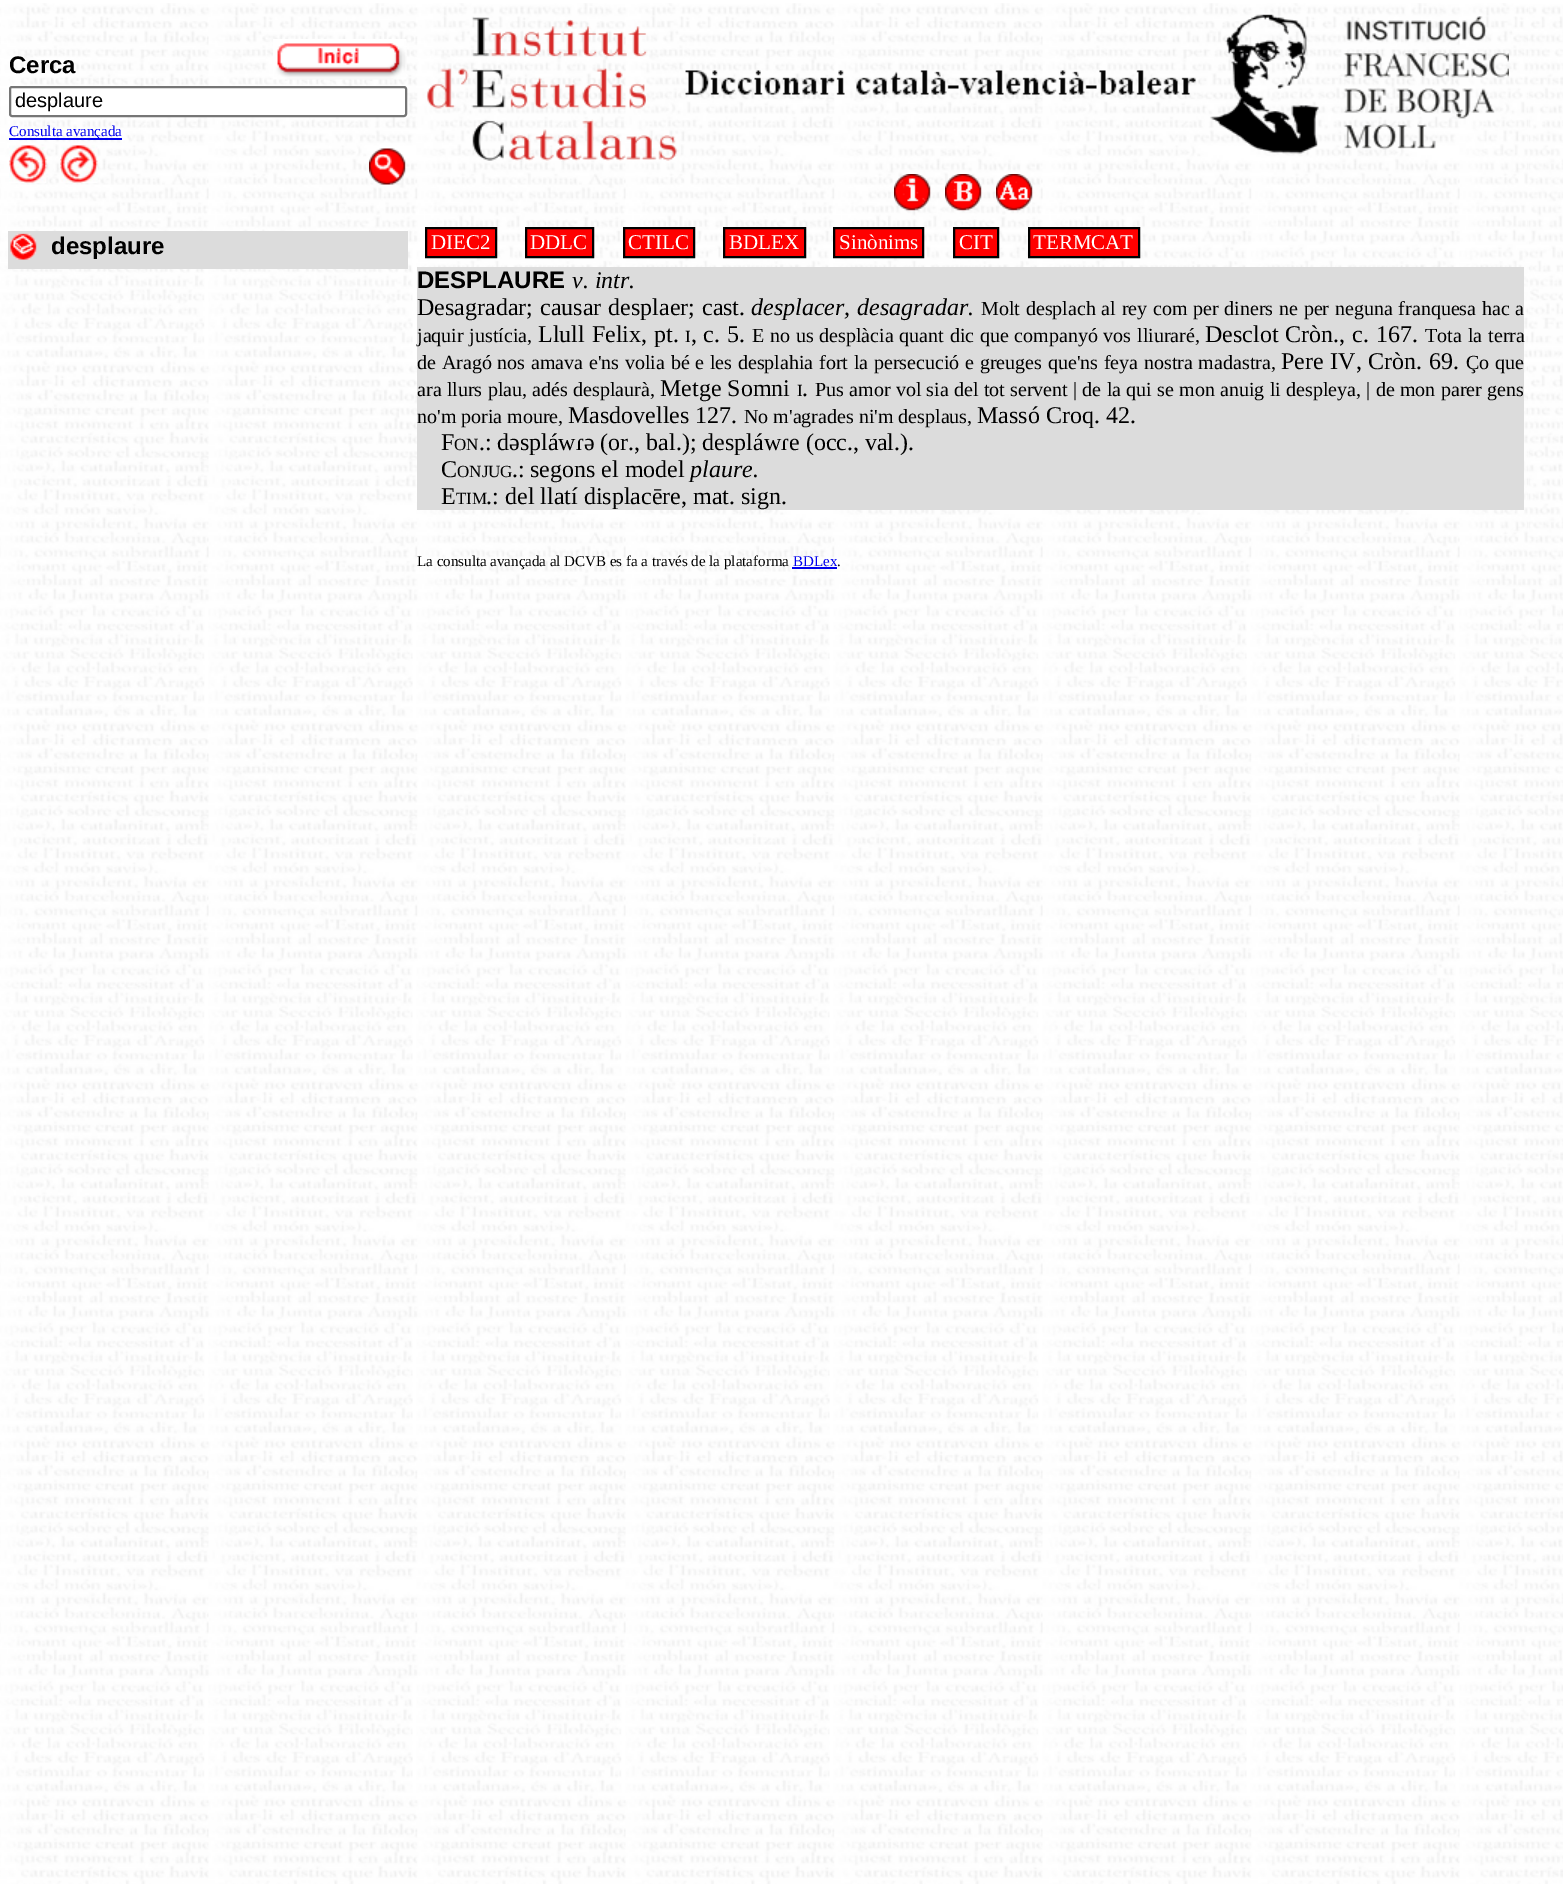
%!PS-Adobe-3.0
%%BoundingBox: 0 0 1563 1884
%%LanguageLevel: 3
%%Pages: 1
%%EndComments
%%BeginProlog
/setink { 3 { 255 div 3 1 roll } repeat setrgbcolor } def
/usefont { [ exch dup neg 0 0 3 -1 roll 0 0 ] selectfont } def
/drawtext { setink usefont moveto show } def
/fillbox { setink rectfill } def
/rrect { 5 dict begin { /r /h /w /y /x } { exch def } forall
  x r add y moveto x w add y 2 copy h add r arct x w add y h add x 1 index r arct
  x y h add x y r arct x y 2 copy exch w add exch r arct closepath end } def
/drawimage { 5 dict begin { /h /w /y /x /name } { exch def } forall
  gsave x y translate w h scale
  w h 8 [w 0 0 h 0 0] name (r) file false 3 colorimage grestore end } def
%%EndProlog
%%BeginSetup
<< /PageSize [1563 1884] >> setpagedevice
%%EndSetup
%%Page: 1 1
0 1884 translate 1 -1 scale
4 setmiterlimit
0 0 1563 1884 255 255 255 fillbox
(assets/img1.rgb) 0 3 1563 1881 drawimage
0 3 1529 570 255 255 255 fillbox
(assets/img2.rgb) 0 3 1529 570 drawimage
(Cerca) 9 73 /LiberationSans-Bold 24 0 0 0 drawtext
(assets/img3.rgb) 273 39 134 41 drawimage
255 255 255 setink
10 87 396 29 2 rrect gsave fill grestore
118 118 118 setink
2 setlinewidth
stroke
(desplaure) 15 107 /LiberationSans-Regular 20 0 0 0 drawtext
9 138 113 2 0 0 238 fillbox
(Consulta avançada) 9 136 /LiberationSerif-Regular 15 0 0 238 drawtext
(assets/img4.rgb) 9 145 38 38 drawimage
(assets/img5.rgb) 60 145 38 38 drawimage
(assets/img6.rgb) 369 148 37 37 drawimage
(assets/img7.rgb) 426 17 251 144 drawimage
(assets/img8.rgb) 685 70 511 25 drawimage
(assets/img9.rgb) 1210 14 299 140 drawimage
(assets/img10.rgb) 894 174 37 37 drawimage
(assets/img11.rgb) 945 174 37 37 drawimage
(assets/img12.rgb) 996 174 37 37 drawimage
8 231 400 38 220 220 220 fillbox
(assets/img13.rgb) 10 233 27 27 drawimage
(desplaure) 51 254 /LiberationSans-Bold 24 0 0 0 drawtext
255 0 0 setink
426 228 moveto 496 228 lineto 496 257 lineto 426 257 lineto closepath gsave fill grestore
0 0 0 setink
stroke
(DIEC2) 431 249 /LiberationSerif-Regular 21 255 255 255 drawtext
255 0 0 setink
526 228 moveto 593 228 lineto 593 257 lineto 526 257 lineto closepath gsave fill grestore
0 0 0 setink
stroke
(DDLC) 530 249 /LiberationSerif-Regular 21 255 255 255 drawtext
255 0 0 setink
624 228 moveto 694 228 lineto 694 257 lineto 624 257 lineto closepath gsave fill grestore
0 0 0 setink
stroke
(CTILC) 628 249 /LiberationSerif-Regular 21 255 255 255 drawtext
255 0 0 setink
724 228 moveto 805 228 lineto 805 257 lineto 724 257 lineto closepath gsave fill grestore
0 0 0 setink
stroke
(BDLEX) 729 249 /LiberationSerif-Regular 21 255 255 255 drawtext
255 0 0 setink
834 228 moveto 923 228 lineto 923 257 lineto 834 257 lineto closepath gsave fill grestore
0 0 0 setink
stroke
(Sinònims) 839 249 /LiberationSerif-Regular 21 255 255 255 drawtext
255 0 0 setink
954 228 moveto 998 228 lineto 998 257 lineto 954 257 lineto closepath gsave fill grestore
0 0 0 setink
stroke
(CIT) 959 249 /LiberationSerif-Regular 21 255 255 255 drawtext
255 0 0 setink
1029 228 moveto 1139 228 lineto 1139 257 lineto 1029 257 lineto closepath gsave fill grestore
0 0 0 setink
stroke
(TERMCAT) 1033 249 /LiberationSerif-Regular 21 255 255 255 drawtext
417 267 1107 243 220 220 220 fillbox
(DESPLAURE) 417 288 /LiberationSans-Bold 24 0 0 0 drawtext
(v. intr.) 572 288 /LiberationSerif-Italic 24 0 0 0 drawtext
/LiberationSerif-Regular 24 usefont
417 315 moveto 1 0 32 (Desagradar; causar desplaer; cast.) widthshow
/LiberationSerif-Italic 24 usefont
751 315 moveto 1 0 32 (desplacer, desagradar.) widthshow
/LiberationSerif-Regular 20 usefont
981 315 moveto 0.75 0 32 (Molt desplach al rey com per diners ne per neguna franquesa hac a) widthshow
417 342 moveto 0.75 0 32 (jaquir justícia,) widthshow
/LiberationSerif-Regular 24 usefont
538 342 moveto 1 0 32 (Llull Felix, pt.) widthshow
(I) 685 342 /LiberationSerif-Regular 17 0 0 0 drawtext
(,) 691 342 /LiberationSerif-Regular 24 0 0 0 drawtext
703 342 moveto 1 0 32 (c. 5.) widthshow
/LiberationSerif-Regular 20 usefont
752 342 moveto 0.75 0 32 (E no us desplàcia quant dic que companyó vos lliuraré,) widthshow
/LiberationSerif-Regular 24 usefont
1205 342 moveto 1 0 32 (Desclot Cròn., c. 167.) widthshow
/LiberationSerif-Regular 20 usefont
1425 342 moveto 1 0 32 (Tota la terra) widthshow
417 369 moveto 0.75 0 32 (de Aragó nos amava e'ns volia bé e les desplahia fort la persecució e greuges que'ns feya nostra madastra,) widthshow
/LiberationSerif-Regular 24 usefont
1281 369 moveto 0.75 0 32 (Pere IV, Cròn. 69.) widthshow
/LiberationSerif-Regular 20 usefont
1466 369 moveto 1 0 32 (Ço que) widthshow
417 396 moveto 0.3 0 32 (ara llurs plau, adés desplaurà,) widthshow
(Metge Somni) 660 396 /LiberationSerif-Regular 24 0 0 0 drawtext
(I) 797 396 /LiberationSerif-Regular 17 0 0 0 drawtext
(.) 802 396 /LiberationSerif-Regular 24 0 0 0 drawtext
/LiberationSerif-Regular 20 usefont
815 396 moveto 0.3 0 32 (Pus amor vol sia del tot servent | de la qui se mon anuig li despleya, | de mon parer gens) widthshow
(no'm poria moure,) 417 423 /LiberationSerif-Regular 20 0 0 0 drawtext
(Masdovelles 127.) 568 423 /LiberationSerif-Regular 24 0 0 0 drawtext
(No m'agrades ni'm desplaus,) 744 423 /LiberationSerif-Regular 20 0 0 0 drawtext
(Massó Croq. 42.) 977 423 /LiberationSerif-Regular 24 0 0 0 drawtext
(F) 441 450 /LiberationSerif-Regular 24 0 0 0 drawtext
(ON) 454 450 /LiberationSerif-Regular 17 0 0 0 drawtext
(.:) 479 450 /LiberationSerif-Regular 24 0 0 0 drawtext
(dəspláwɾə \(or., bal.\); despláwɾe \(occ., val.\).) 497 450 /LiberationSerif-Regular 24 0 0 0 drawtext
(C) 441 477 /LiberationSerif-Regular 24 0 0 0 drawtext
(ONJUG) 457 477 /LiberationSerif-Regular 17 0 0 0 drawtext
(.:) 512 477 /LiberationSerif-Regular 24 0 0 0 drawtext
(segons el model) 530 477 /LiberationSerif-Regular 24 0 0 0 drawtext
(plaure.) 690 477 /LiberationSerif-Italic 24 0 0 0 drawtext
(E) 441 504 /LiberationSerif-Regular 24 0 0 0 drawtext
(TIM) 456 504 /LiberationSerif-Regular 17 0 0 0 drawtext
(.:) 486 504 /LiberationSerif-Regular 24 0 0 0 drawtext
(del llatí displacēre, mat. sign.) 505 504 /LiberationSerif-Regular 24 0 0 0 drawtext
(La consulta avançada al DCVB es fa a través de la plataforma) 417 566 /LiberationSerif-Regular 15 0 0 0 drawtext
(BDLex) 793 566 /LiberationSerif-Regular 15 0 0 238 drawtext
792 567 45 2 0 0 238 fillbox
(.) 837 566 /LiberationSerif-Regular 15 0 0 0 drawtext
showpage
%%EOF
